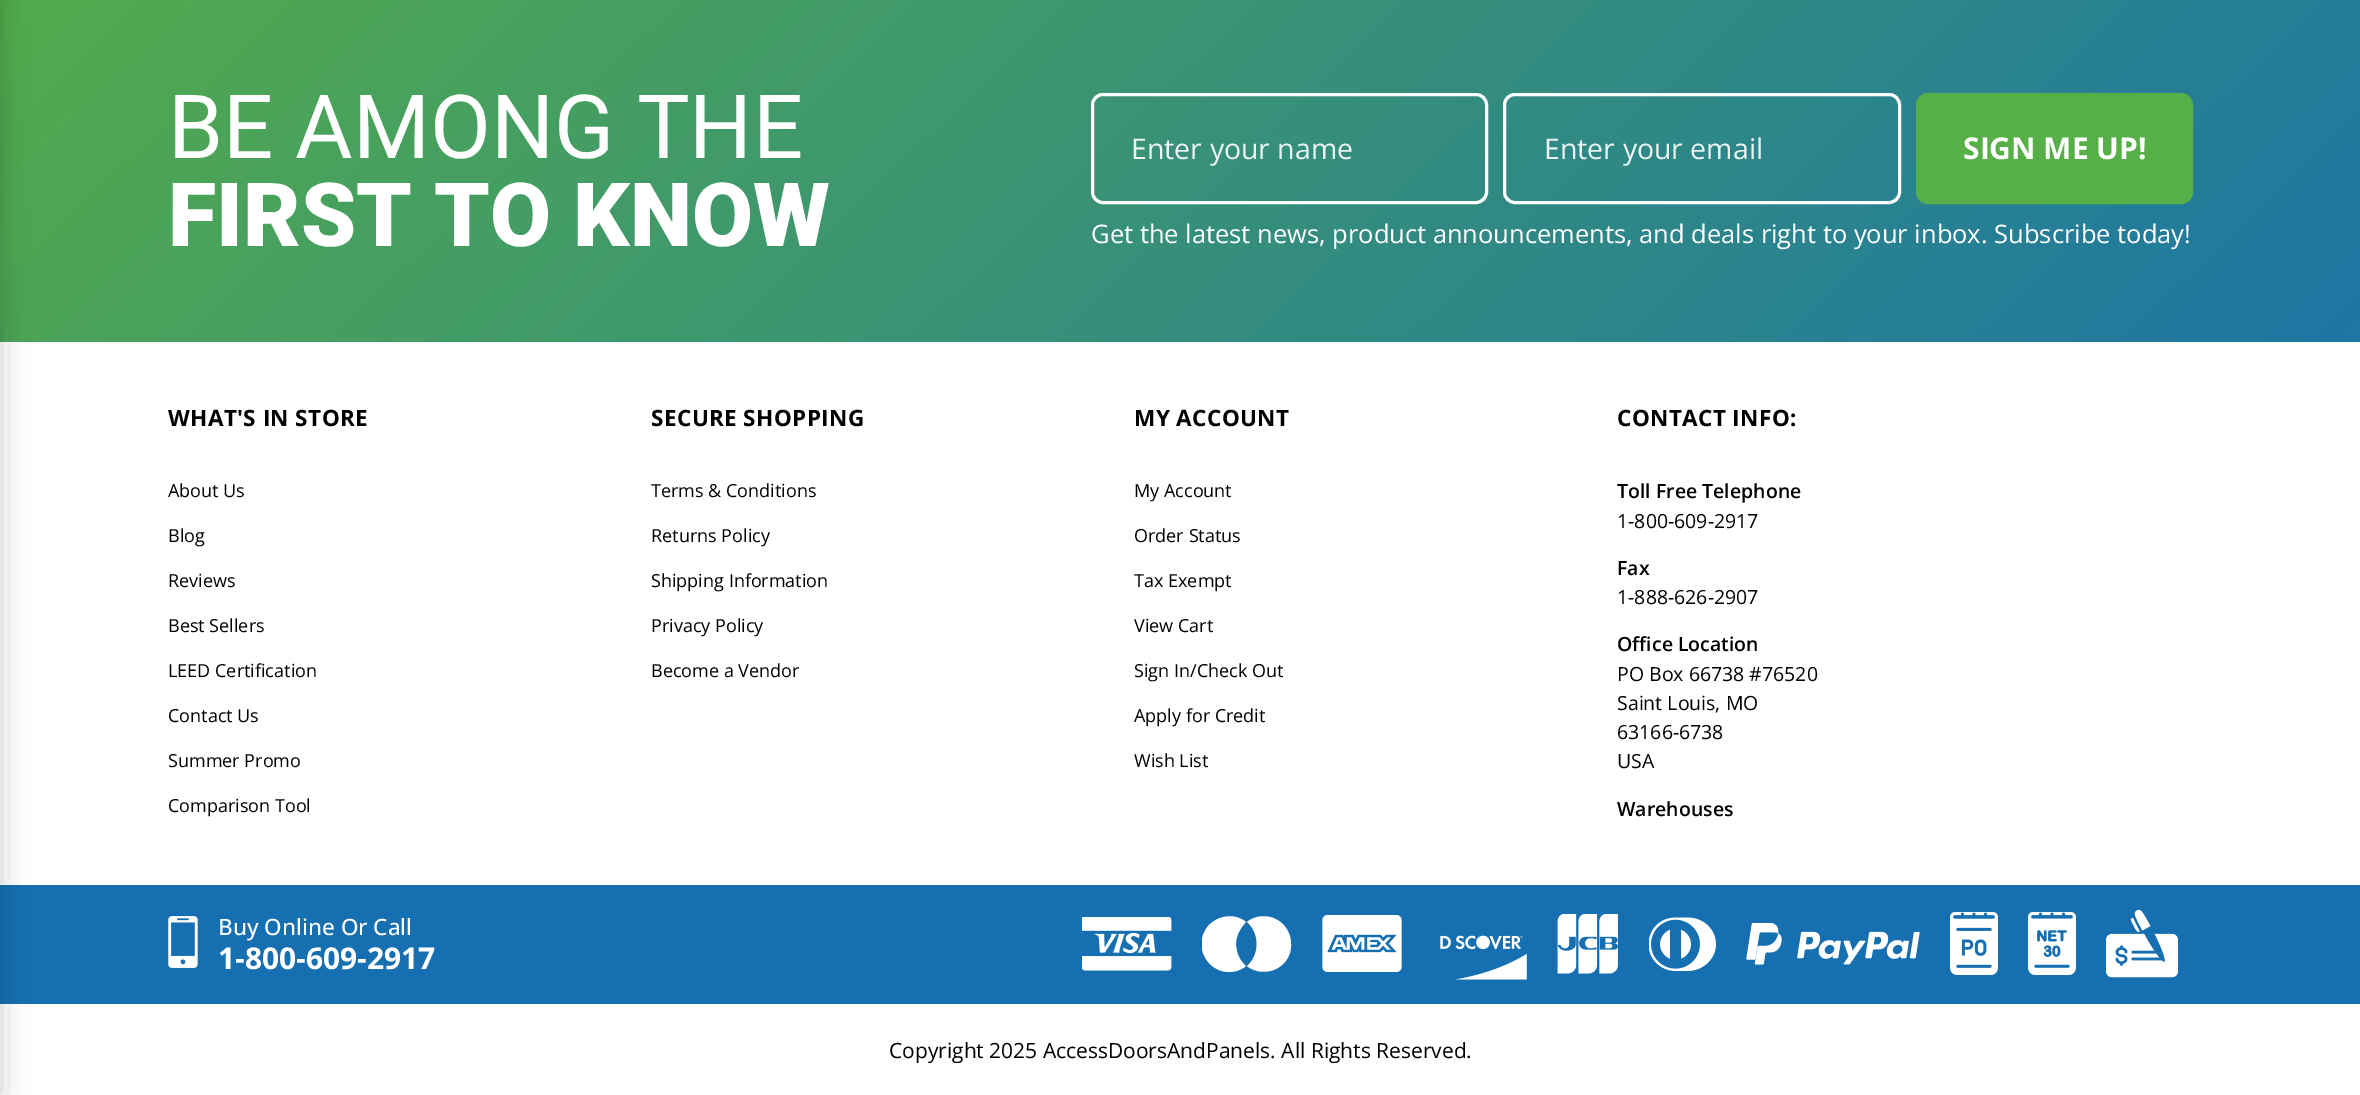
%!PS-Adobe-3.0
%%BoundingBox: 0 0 2360 1095
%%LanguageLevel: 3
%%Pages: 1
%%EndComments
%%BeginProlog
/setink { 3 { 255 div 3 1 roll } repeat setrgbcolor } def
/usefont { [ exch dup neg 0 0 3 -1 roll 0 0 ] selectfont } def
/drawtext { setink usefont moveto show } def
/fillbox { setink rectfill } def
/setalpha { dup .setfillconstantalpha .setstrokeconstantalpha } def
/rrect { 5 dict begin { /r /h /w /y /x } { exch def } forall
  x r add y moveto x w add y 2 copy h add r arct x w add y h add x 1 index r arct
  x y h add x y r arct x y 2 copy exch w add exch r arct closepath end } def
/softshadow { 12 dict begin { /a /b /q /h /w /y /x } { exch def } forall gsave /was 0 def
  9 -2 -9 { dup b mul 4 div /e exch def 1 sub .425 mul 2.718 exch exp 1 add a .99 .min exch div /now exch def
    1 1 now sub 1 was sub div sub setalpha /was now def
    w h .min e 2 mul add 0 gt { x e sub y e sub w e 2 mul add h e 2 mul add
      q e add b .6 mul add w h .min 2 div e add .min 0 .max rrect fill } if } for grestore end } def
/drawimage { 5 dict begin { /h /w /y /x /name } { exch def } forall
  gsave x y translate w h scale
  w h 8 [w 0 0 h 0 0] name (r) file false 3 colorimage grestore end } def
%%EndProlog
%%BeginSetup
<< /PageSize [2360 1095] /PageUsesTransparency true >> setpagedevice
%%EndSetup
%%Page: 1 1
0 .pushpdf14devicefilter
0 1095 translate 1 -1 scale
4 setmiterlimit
0 0 2360 1095 255 255 255 fillbox
gsave 0 0 moveto 2360 0 lineto 2360 342 lineto 0 342 lineto closepath clip newpath
<< /ShadingType 2 /ColorSpace /DeviceRGB /Coords [525 -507 1836 849] /Extend [true true] /Function << /FunctionType 2 /Domain [0 1] /C0 [0.325 0.675 0.298] /C1 [0.114 0.463 0.643] /N 1 >> >> shfill grestore
0 885 2360 119 22 111 176 fillbox
0 0 0 setink
-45 0 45 1095 0 15 0.2 softshadow
(BE AMONG THE) 168 158 /Roboto-Regular 88.5 255 255 255 drawtext
(FIRST TO KNOW) 168 246 /Roboto-Black 88.5 255 255 255 drawtext
3 setlinewidth
1092.5 94.5 394 108 10.5 rrect stroke
(Enter your name) 1131 159 /OpenSans-Regular 28.5 235 244 242 drawtext
255 255 255 setink
1504.5 94.5 395 108 10.5 rrect stroke
(Enter your email) 1544 159 /OpenSans-Regular 28.5 235 244 242 drawtext
86 175 71 setink
1917.5 94.5 274 108 10.5 rrect gsave fill grestore
stroke
(SIGN ME UP!) 1963 159 /OpenSans-Bold 30 255 255 255 drawtext
(Get the latest news, product announcements, and deals right to your inbox. Subscribe today!) 1091 243 /OpenSans-Regular 25.5 255 255 255 drawtext
/OpenSans-Bold 22.5 usefont
0 0 0 setink
168 426 moveto 0.4 0 (WHAT'S IN STORE) ashow
(About Us) 168 497 /OpenSans-Regular 18 0 0 0 drawtext
(Blog) 168 542 /OpenSans-Regular 18 0 0 0 drawtext
(Reviews) 168 587 /OpenSans-Regular 18 0 0 0 drawtext
(Best Sellers) 168 632 /OpenSans-Regular 18 0 0 0 drawtext
(LEED Certification) 168 677 /OpenSans-Regular 18 0 0 0 drawtext
(Contact Us) 168 722 /OpenSans-Regular 18 0 0 0 drawtext
(Summer Promo) 168 767 /OpenSans-Regular 18 0 0 0 drawtext
(Comparison Tool) 168 812 /OpenSans-Regular 18 0 0 0 drawtext
/OpenSans-Bold 22.5 usefont
651 426 moveto 0.4 0 (SECURE SHOPPING) ashow
(Terms & Conditions) 651 497 /OpenSans-Regular 18 0 0 0 drawtext
(Returns Policy) 651 542 /OpenSans-Regular 18 0 0 0 drawtext
(Shipping Information) 651 587 /OpenSans-Regular 18 0 0 0 drawtext
(Privacy Policy) 651 632 /OpenSans-Regular 18 0 0 0 drawtext
(Become a Vendor) 651 677 /OpenSans-Regular 18 0 0 0 drawtext
/OpenSans-Bold 22.5 usefont
1134 426 moveto 0.4 0 (MY ACCOUNT) ashow
(My Account) 1134 497 /OpenSans-Regular 18 0 0 0 drawtext
(Order Status) 1134 542 /OpenSans-Regular 18 0 0 0 drawtext
(Tax Exempt) 1134 587 /OpenSans-Regular 18 0 0 0 drawtext
(View Cart) 1134 632 /OpenSans-Regular 18 0 0 0 drawtext
(Sign In/Check Out) 1134 677 /OpenSans-Regular 18 0 0 0 drawtext
(Apply for Credit) 1134 722 /OpenSans-Regular 18 0 0 0 drawtext
(Wish List) 1134 767 /OpenSans-Regular 18 0 0 0 drawtext
/OpenSans-Bold 22.5 usefont
1617 426 moveto 0.4 0 (CONTACT INFO:) ashow
(Toll Free Telephone) 1617 498 /OpenSans-SemiBold 19.5 0 0 0 drawtext
(1-800-609-2917) 1617 528 /OpenSans-Regular 19.5 0 0 0 drawtext
(Fax) 1617 575 /OpenSans-SemiBold 19.5 0 0 0 drawtext
(1-888-626-2907) 1617 604 /OpenSans-Regular 19.5 0 0 0 drawtext
(Office Location) 1617 651 /OpenSans-SemiBold 19.5 0 0 0 drawtext
(PO Box 66738 #76520) 1617 681 /OpenSans-Regular 19.5 0 0 0 drawtext
(Saint Louis, MO) 1617 710 /OpenSans-Regular 19.5 0 0 0 drawtext
(63166-6738) 1617 739 /OpenSans-Regular 19.5 0 0 0 drawtext
(USA) 1617 768 /OpenSans-Regular 19.5 0 0 0 drawtext
(Warehouses) 1617 816 /OpenSans-SemiBold 19.5 0 0 0 drawtext
(assets/img1.rgb) 168 916 30 52 drawimage
(Buy Online Or Call) 218 935 /OpenSans-Medium 22.5 255 255 255 drawtext
(1-800-609-2917) 218 969 /OpenSans-Bold 30 255 255 255 drawtext
(assets/img2.rgb) 1082 917 90 54 drawimage
gsave
1202 909 90 71 rectclip
1236 944 moveto 1236 936 1240 928 1246 922 curveto 1235 913 1219 915 1209 925 curveto 1199 936 1199 952 1209 963 curveto 1219 974 1235 975 1246 966 curveto 1240 961 1236 953 1236 944 curveto fill
grestore
1291 944 moveto 1292 967 1265 980 1247 966 curveto 1260 955 1260 933 1247 922 curveto 1265 908 1291 921 1291 944 curveto fill
(assets/img3.rgb) 1322 915 80 57 drawimage
(assets/img4.rgb) 1440 935 87 45 drawimage
(assets/img5.rgb) 1557 914 61 60 drawimage
(assets/img6.rgb) 1649 917 67 54 drawimage
(assets/img7.rgb) 1746 923 174 42 drawimage
(assets/img8.rgb) 1950 912 48 63 drawimage
(assets/img9.rgb) 2028 912 48 63 drawimage
(assets/img10.rgb) 2106 909 72 69 drawimage
(Copyright 2025 AccessDoorsAndPanels. All Rights Reserved.) 889 1058 /OpenSans-Regular 21 0 0 0 drawtext
.poppdf14devicefilter showpage
%%EOF
